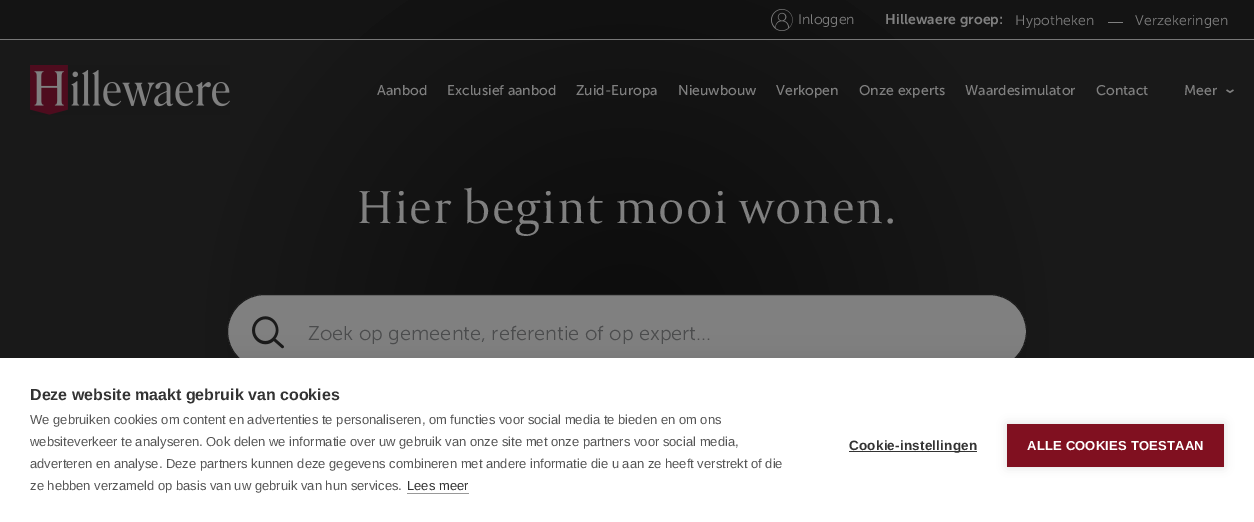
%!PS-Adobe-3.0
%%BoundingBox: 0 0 1254 522
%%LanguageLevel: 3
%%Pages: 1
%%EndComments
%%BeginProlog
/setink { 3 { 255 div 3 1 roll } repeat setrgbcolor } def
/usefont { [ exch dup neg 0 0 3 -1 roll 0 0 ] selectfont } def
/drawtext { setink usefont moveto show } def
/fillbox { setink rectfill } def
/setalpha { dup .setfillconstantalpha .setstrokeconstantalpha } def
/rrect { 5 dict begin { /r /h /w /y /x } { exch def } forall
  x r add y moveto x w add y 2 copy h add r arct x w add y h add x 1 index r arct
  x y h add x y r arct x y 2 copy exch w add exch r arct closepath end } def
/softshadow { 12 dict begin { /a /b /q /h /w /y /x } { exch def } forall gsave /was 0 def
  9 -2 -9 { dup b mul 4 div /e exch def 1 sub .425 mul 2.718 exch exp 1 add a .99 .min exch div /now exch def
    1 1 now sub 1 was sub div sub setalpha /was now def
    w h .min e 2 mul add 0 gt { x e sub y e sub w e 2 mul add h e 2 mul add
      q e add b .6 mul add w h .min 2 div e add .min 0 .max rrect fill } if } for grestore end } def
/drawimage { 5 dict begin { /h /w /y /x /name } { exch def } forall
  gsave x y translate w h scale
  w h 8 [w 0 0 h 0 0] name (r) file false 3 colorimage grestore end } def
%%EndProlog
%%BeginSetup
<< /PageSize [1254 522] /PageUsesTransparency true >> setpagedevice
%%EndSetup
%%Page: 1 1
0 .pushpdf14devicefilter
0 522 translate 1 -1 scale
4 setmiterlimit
0 0 1254 522 255 255 255 fillbox
0 39 1254 1 119 119 119 fillbox
gsave 0 0 moveto 1254 0 lineto 1254 39 lineto 0 39 lineto closepath clip newpath 627 335 translate 711 711 scale
<< /ShadingType 3 /ColorSpace /DeviceRGB /Coords [0 0 0 0 0 1] /Extend [true true] /Function << /FunctionType 3 /Domain [0 1] /Functions [<< /FunctionType 2 /Domain [0 1] /C0 [0.039 0.039 0.039] /C1 [0.078 0.078 0.078] /N 1 >> << /FunctionType 2 /Domain [0 1] /C0 [0.078 0.078 0.078] /C1 [0.078 0.078 0.078] /N 1 >>] /Bounds [0.6] /Encode [0 1 0 1] >> >> shfill grestore
(assets/img1.rgb) 771 9 22 22 drawimage
(Inloggen) 798 24 /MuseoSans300-Light 14 128 128 128 drawtext
/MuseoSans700-SemiBold 14 usefont
885 24 moveto 0.1 0 (Hillewaere groep:) ashow
/MuseoSans300-Light 14 usefont
1015 25 moveto 0.1 0 (Hypotheken) ashow
1108 22 15 1 128 128 128 fillbox
1135 25 moveto 0.1 0 (Verzekeringen) ashow
gsave 0 40 moveto 1254 40 lineto 1254 358 lineto 0 358 lineto closepath clip newpath 627 335 translate 711 711 scale
<< /ShadingType 3 /ColorSpace /DeviceRGB /Coords [0 0 0 0 0 1] /Extend [true true] /Function << /FunctionType 3 /Domain [0 1] /Functions [<< /FunctionType 2 /Domain [0 1] /C0 [0.047 0.047 0.047] /C1 [0.098 0.098 0.098] /N 1 >> << /FunctionType 2 /Domain [0 1] /C0 [0.098 0.098 0.098] /C1 [0.098 0.098 0.098] /N 1 >>] /Bounds [0.6] /Encode [0 1 0 1] >> >> shfill grestore
(assets/img2.rgb) 30 65 200 50 drawimage
(Aanbod) 377 95 /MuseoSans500-Regular 14 128 128 128 drawtext
(Exclusief aanbod) 447 95 /MuseoSans500-Regular 14 128 128 128 drawtext
(Zuid-Europa) 576 95 /MuseoSans500-Regular 14 128 128 128 drawtext
(Nieuwbouw) 678 95 /MuseoSans500-Regular 14 128 128 128 drawtext
(Verkopen) 776 95 /MuseoSans500-Regular 14 128 128 128 drawtext
(Onze experts) 859 95 /MuseoSans500-Regular 14 128 128 128 drawtext
(Waardesimulator) 965 95 /MuseoSans500-Regular 14 128 128 128 drawtext
(Contact) 1096 95 /MuseoSans500-Regular 14 128 128 128 drawtext
(Meer) 1184 95 /MuseoSans500-Regular 14 128 128 128 drawtext
(assets/img3.rgb) 1226 89 8 5 drawimage
/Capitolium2-Light 48.75 usefont
357 223 moveto 1 0 (Hier begint mooi wonen.) ashow
0 0 0 setink
226 293 802 77 38.5 1.5 0.1 softshadow
128 128 128 setink
227.5 294.5 799 74 37 rrect gsave fill grestore
26 26 26 setink
stroke
(assets/img4.rgb) 252 316 32 33 drawimage
(Zoek op gemeente, referentie of op expert...) 308 340 /MuseoSans300-Light 20 75 76 77 drawtext
0 0 0 setink
0 358 1254 164 0 10 0.1 softshadow
0 358 1254 164 255 255 255 fillbox
(Deze website maakt gebruik van cookies) 30 400 /LiberationSans-Bold 16 51 51 51 drawtext
(We gebruiken cookies om content en advertenties te personaliseren, om functies voor social media te bieden en om ons) 30 424 /LiberationSans-Regular 13 85 85 85 drawtext
(websiteverkeer te analyseren. Ook delen we informatie over uw gebruik van onze site met onze partners voor social media,) 30 446 /LiberationSans-Regular 13 85 85 85 drawtext
(adverteren en analyse. Deze partners kunnen deze gegevens combineren met andere informatie die u aan ze heeft verstrekt of die) 30 468 /LiberationSans-Regular 13 85 85 85 drawtext
(ze hebben verzameld op basis van uw gebruik van hun services.) 30 490 /LiberationSans-Regular 13 85 85 85 drawtext
(Lees meer) 407 490 /LiberationSans-Regular 13 51 51 51 drawtext
407 493 62 1 153 153 153 fillbox
849 451 128 1 51 51 51 fillbox
/LiberationSans-Bold 13.5 usefont
849 450 moveto 0.2 0 (Cookie-instellingen) ashow
0 0 0 setink
1007 424 217 43 0 5 0.12 softshadow
1007 424 217 43 128 16 32 fillbox
/LiberationSans-Bold 13 usefont
255 255 255 setink
1027 450 moveto 0.2 0 (ALLE COOKIES TOESTAAN) ashow
.poppdf14devicefilter showpage
%%EOF
